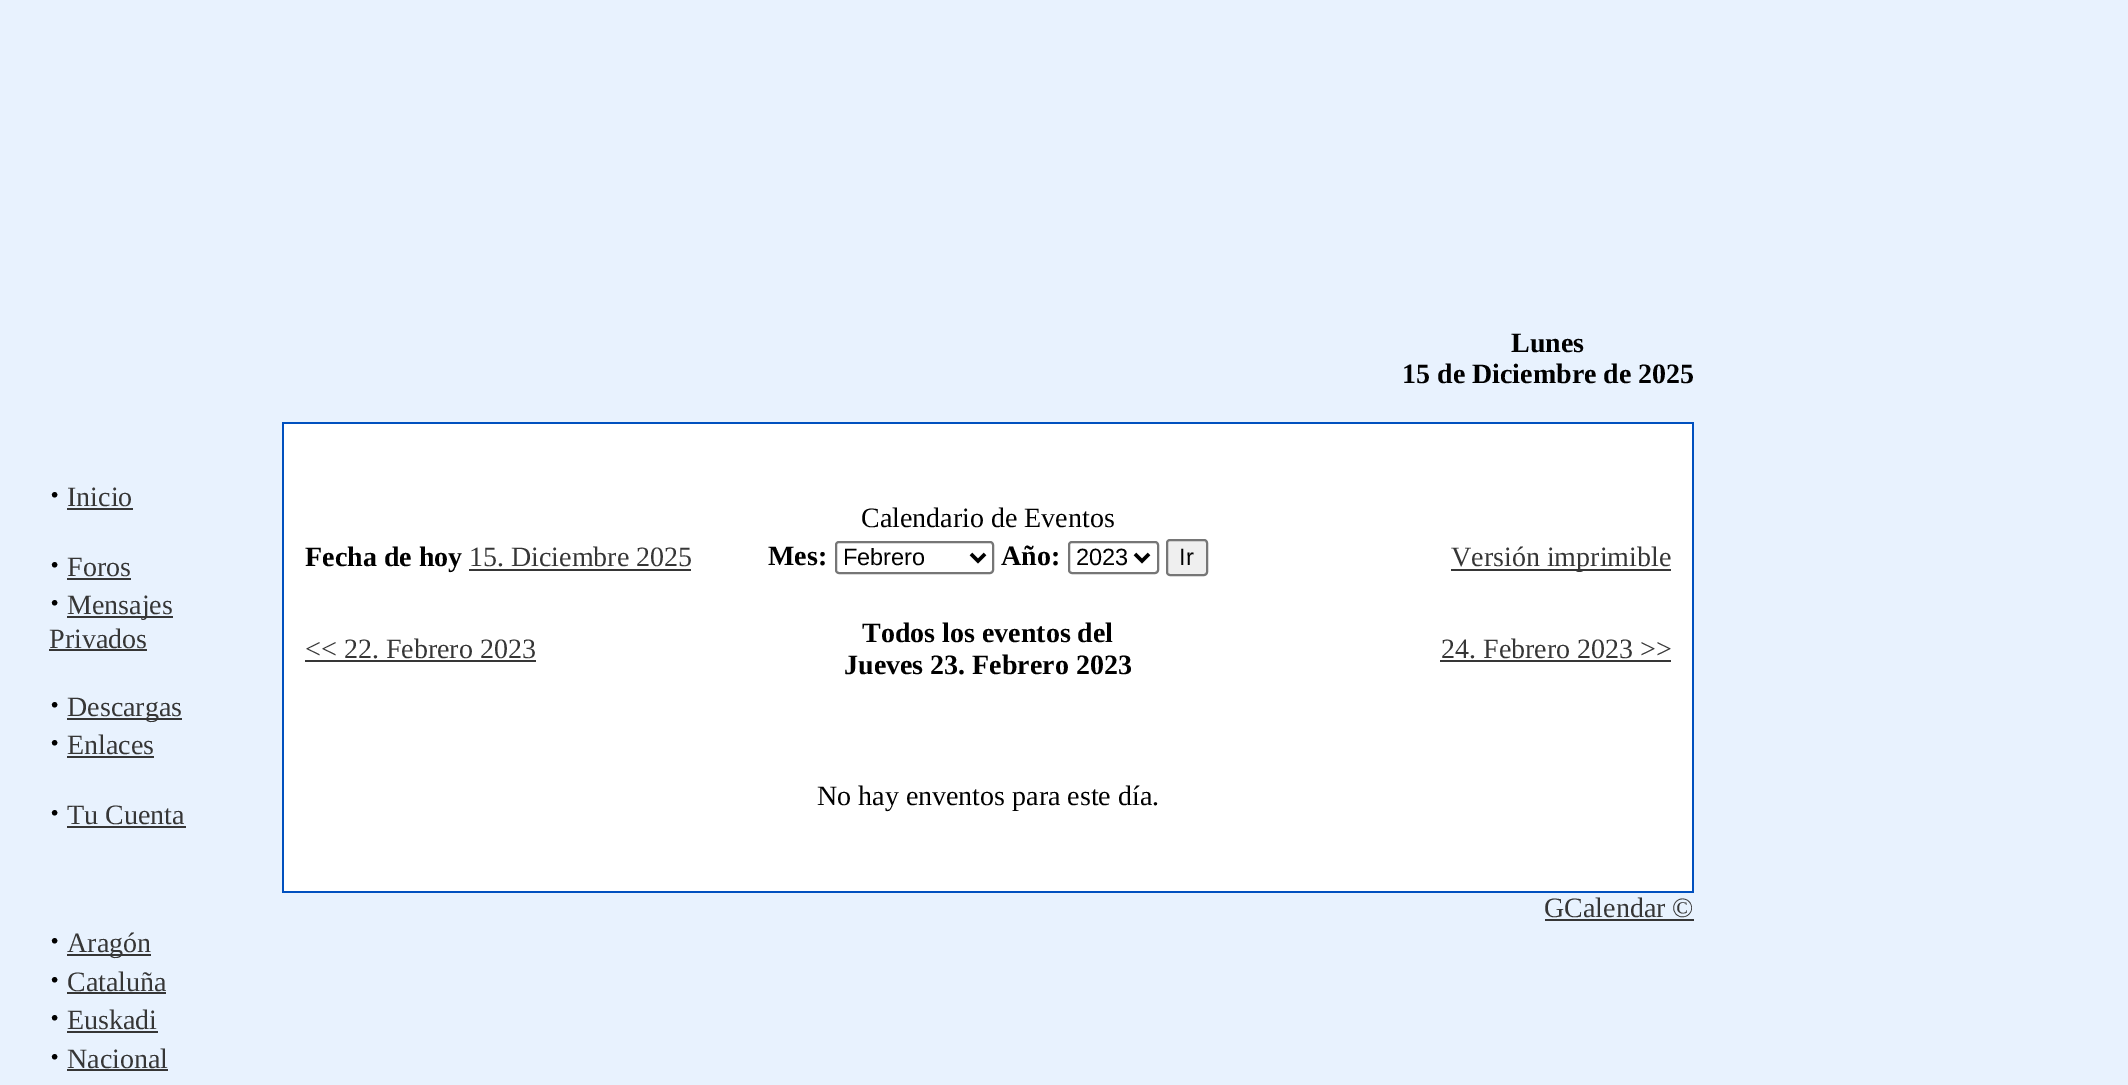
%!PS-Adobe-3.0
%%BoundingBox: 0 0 2128 1085
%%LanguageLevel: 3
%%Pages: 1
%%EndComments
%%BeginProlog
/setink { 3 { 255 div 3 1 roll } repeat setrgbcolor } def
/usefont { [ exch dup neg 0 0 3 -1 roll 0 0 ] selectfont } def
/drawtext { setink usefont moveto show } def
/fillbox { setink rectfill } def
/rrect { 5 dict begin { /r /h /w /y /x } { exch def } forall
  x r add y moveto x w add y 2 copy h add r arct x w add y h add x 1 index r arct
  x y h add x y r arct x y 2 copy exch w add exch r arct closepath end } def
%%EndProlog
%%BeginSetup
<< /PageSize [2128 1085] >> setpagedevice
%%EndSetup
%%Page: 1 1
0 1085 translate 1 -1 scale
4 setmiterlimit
0 0 2128 1085 232 242 254 fillbox
(Lunes) 1511 352 /LiberationSerif-Bold 28 0 0 0 drawtext
(15 de Diciembre de 2025) 1402 383 /LiberationSerif-Bold 28 0 0 0 drawtext
(·) 49 506 /LiberationSerif-Bold 34 0 0 0 drawtext
(Inicio) 67 506 /LiberationSerif-Regular 28 54 54 54 drawtext
67 508 66 2 54 54 54 fillbox
(·) 49 576 /LiberationSerif-Bold 34 0 0 0 drawtext
(Foros) 67 576 /LiberationSerif-Regular 28 54 54 54 drawtext
67 578 64 2 54 54 54 fillbox
(·) 49 614 /LiberationSerif-Bold 34 0 0 0 drawtext
67 616 106 2 54 54 54 fillbox
(Mensajes) 67 614 /LiberationSerif-Regular 28 54 54 54 drawtext
(Privados) 49 648 /LiberationSerif-Regular 28 54 54 54 drawtext
49 649 98 2 54 54 54 fillbox
(·) 49 716 /LiberationSerif-Bold 34 0 0 0 drawtext
67 718 115 2 54 54 54 fillbox
(Descargas) 67 716 /LiberationSerif-Regular 28 54 54 54 drawtext
(·) 49 754 /LiberationSerif-Bold 34 0 0 0 drawtext
(Enlaces) 67 754 /LiberationSerif-Regular 28 54 54 54 drawtext
67 756 87 2 54 54 54 fillbox
(·) 49 824 /LiberationSerif-Bold 34 0 0 0 drawtext
(Tu Cuenta) 67 824 /LiberationSerif-Regular 28 54 54 54 drawtext
67 826 119 2 54 54 54 fillbox
(·) 49 952 /LiberationSerif-Bold 34 0 0 0 drawtext
67 954 84 2 54 54 54 fillbox
(Aragón) 67 952 /LiberationSerif-Regular 28 54 54 54 drawtext
(·) 49 991 /LiberationSerif-Bold 34 0 0 0 drawtext
(Cataluña) 67 991 /LiberationSerif-Regular 28 54 54 54 drawtext
67 992 99 2 54 54 54 fillbox
(·) 49 1029 /LiberationSerif-Bold 34 0 0 0 drawtext
(Euskadi) 67 1029 /LiberationSerif-Regular 28 54 54 54 drawtext
67 1031 91 2 54 54 54 fillbox
(·) 49 1068 /LiberationSerif-Bold 34 0 0 0 drawtext
(Nacional) 67 1068 /LiberationSerif-Regular 28 54 54 54 drawtext
67 1069 101 2 54 54 54 fillbox
282 422 1412 471 0 80 191 fillbox
284 424 1408 467 255 255 255 fillbox
(Calendario de Eventos) 861 527 /LiberationSerif-Regular 28 0 0 0 drawtext
(Fecha de hoy) 305 566 /LiberationSerif-Bold 28 0 0 0 drawtext
(15. Diciembre 2025) 469 566 /LiberationSerif-Regular 28 54 54 54 drawtext
469 569 222 2 54 54 54 fillbox
(Mes:) 768 565 /LiberationSerif-Bold 28 0 0 0 drawtext
118 118 118 setink
2 setlinewidth
836 542 157 31 3 rrect stroke
0 0 0 setink
3.5 setlinewidth
971 554 moveto 978 561 lineto 985 554 lineto stroke
(Febrero) 843 565 /LiberationSans-Regular 23.5 0 0 0 drawtext
(Año:) 1001 565 /LiberationSerif-Bold 28 0 0 0 drawtext
118 118 118 setink
2 setlinewidth
1069 542 89 31 3 rrect stroke
0 0 0 setink
3.5 setlinewidth
1135 554 moveto 1142 561 lineto 1149 554 lineto stroke
(2023) 1076 565 /LiberationSans-Regular 23.5 0 0 0 drawtext
239 239 239 setink
1167 540 40 35 3 rrect gsave fill grestore
118 118 118 setink
2 setlinewidth
stroke
(Ir) 1179 565 /LiberationSans-Regular 23.5 0 0 0 drawtext
1451 569 220 2 54 54 54 fillbox
(Versión imprimible) 1451 566 /LiberationSerif-Regular 28 54 54 54 drawtext
(<< 22. Febrero 2023) 305 658 /LiberationSerif-Regular 28 54 54 54 drawtext
305 660 231 2 54 54 54 fillbox
(Todos los eventos del) 862 642 /LiberationSerif-Bold 28 0 0 0 drawtext
(Jueves 23. Febrero 2023) 844 674 /LiberationSerif-Bold 28 0 0 0 drawtext
(24. Febrero 2023 >>) 1441 658 /LiberationSerif-Regular 28 54 54 54 drawtext
1440 660 231 2 54 54 54 fillbox
(No hay enventos para este día.) 817 805 /LiberationSerif-Regular 28 0 0 0 drawtext
(GCalendar ©) 1544 917 /LiberationSerif-Regular 28 54 54 54 drawtext
1545 919 149 2 54 54 54 fillbox
showpage
%%EOF
